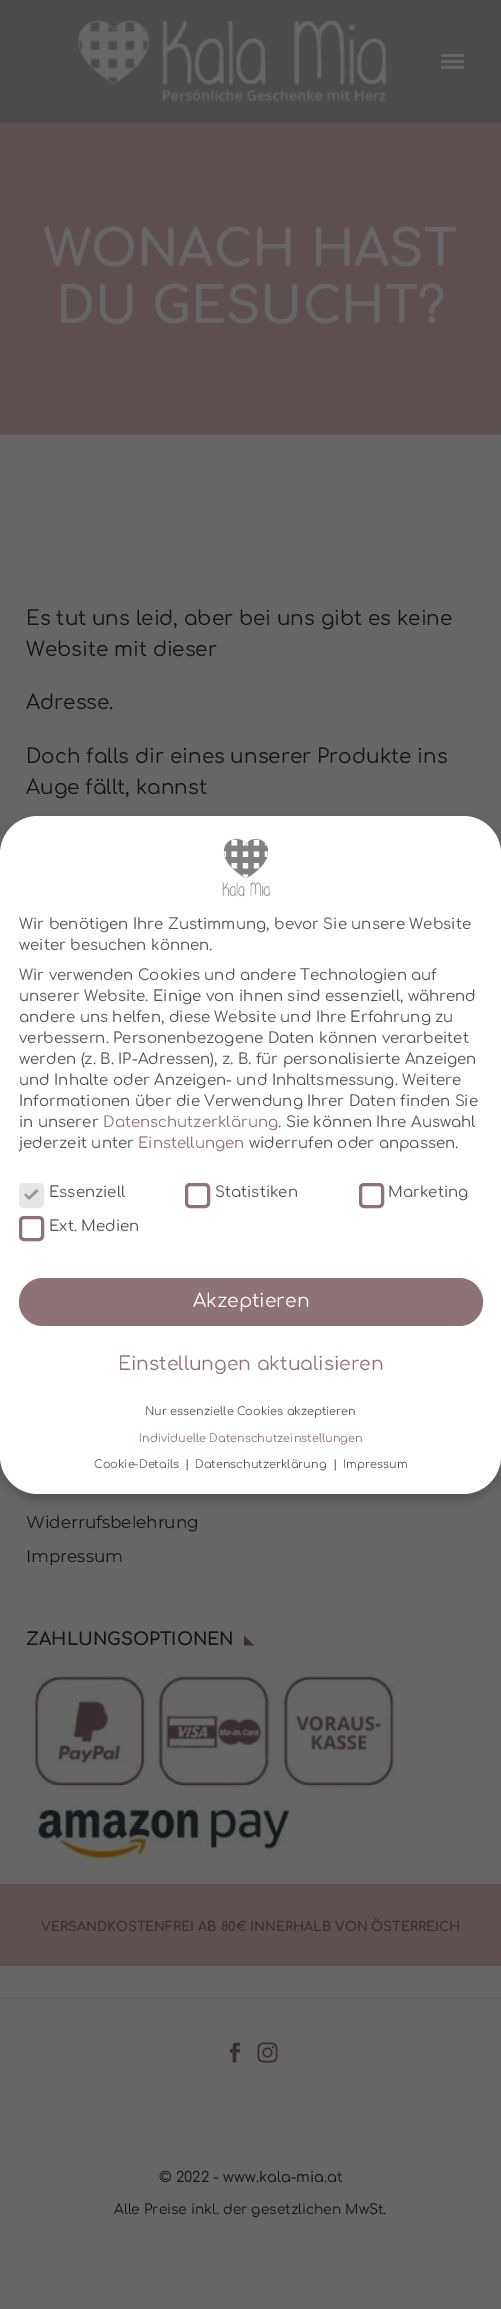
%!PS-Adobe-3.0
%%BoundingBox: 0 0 501 2309
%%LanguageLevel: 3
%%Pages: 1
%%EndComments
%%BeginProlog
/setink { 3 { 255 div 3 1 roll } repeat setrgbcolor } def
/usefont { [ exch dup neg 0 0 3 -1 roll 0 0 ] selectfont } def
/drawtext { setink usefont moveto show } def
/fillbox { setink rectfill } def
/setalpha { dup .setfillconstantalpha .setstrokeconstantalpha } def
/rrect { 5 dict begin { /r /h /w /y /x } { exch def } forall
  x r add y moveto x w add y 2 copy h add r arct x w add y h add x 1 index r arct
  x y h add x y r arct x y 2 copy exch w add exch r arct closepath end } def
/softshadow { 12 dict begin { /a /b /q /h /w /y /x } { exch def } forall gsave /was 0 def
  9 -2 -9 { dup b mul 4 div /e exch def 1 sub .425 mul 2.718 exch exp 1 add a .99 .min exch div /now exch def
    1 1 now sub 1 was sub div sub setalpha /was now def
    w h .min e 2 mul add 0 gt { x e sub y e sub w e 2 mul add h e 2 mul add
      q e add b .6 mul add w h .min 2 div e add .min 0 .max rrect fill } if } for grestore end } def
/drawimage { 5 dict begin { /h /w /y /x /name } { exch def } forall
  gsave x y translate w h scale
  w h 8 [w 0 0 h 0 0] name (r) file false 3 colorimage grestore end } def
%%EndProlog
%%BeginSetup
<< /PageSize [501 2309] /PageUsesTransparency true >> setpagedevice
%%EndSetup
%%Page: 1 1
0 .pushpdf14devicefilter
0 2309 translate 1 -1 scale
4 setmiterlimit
0 0 501 2309 102 102 102 fillbox
0 0 501 123 75 75 75 fillbox
(assets/img1.rgb) 77 20 310 82 drawimage
441 54 23 3 102 102 102 fillbox
441 60 23 3 102 102 102 fillbox
441 66 23 3 102 102 102 fillbox
0 123 501 312 94 80 80 fillbox
(WONACH HAST) 44 266 /Comfortaa-Bold 50 102 102 102 drawtext
(DU GESUCHT?) 56 323 /Comfortaa-Bold 50 102 102 102 drawtext
(Es tut uns leid, aber bei uns gibt es keine) 26 625 /Comfortaa-Regular 20 20 20 20 drawtext
(Website mit dieser) 26 656 /Comfortaa-Regular 20 20 20 20 drawtext
(Adresse.) 26 709 /Comfortaa-Regular 20 20 20 20 drawtext
(Doch falls dir eines unserer Produkte ins) 26 763 /Comfortaa-Regular 20 20 20 20 drawtext
(Auge fällt, kannst) 26 794 /Comfortaa-Regular 20 20 20 20 drawtext
(Widerrufsbelehrung) 26 1528 /Montserrat-Thin 16.9 20 20 20 drawtext
(Impressum) 26 1562 /Montserrat-Thin 16.9 20 20 20 drawtext
(ZAHLUNGSOPTIONEN) 26 1645 /Comfortaa-Bold 17.5 20 20 20 drawtext
57 46 47 setink
244 1635.5 moveto 244 1645.5 lineto 254 1645.5 lineto closepath fill
(assets/img2.rgb) 31 1675 366 190 drawimage
0 1884 501 82 94 80 80 fillbox
(VERSANDKOSTENFREI AB 80€ INNERHALB VON ÖSTERREICH) 41 1931 /Comfortaa-Bold 13 57 46 47 drawtext
0 1998 501 1 94 94 94 fillbox
(assets/img3.rgb) 230 2042 10 21 drawimage
(assets/img4.rgb) 257 2042 21 21 drawimage
(© 2022 - www.kala-mia.at) 159 2182 /Comfortaa-Regular 14.5 20 20 20 drawtext
0 0 0 setink
0 821 501 678 38 5 0.2 softshadow
255 255 255 setink
0 816 501 678 38 rrect fill
(assets/img5.rgb) 222 838 48 59 drawimage
(Wir benötigen Ihre Zustimmung, bevor Sie unsere Website) 19 929 /Comfortaa-Regular 15 85 85 85 drawtext
(weiter besuchen können.) 19 950 /Comfortaa-Regular 15 85 85 85 drawtext
(Wir verwenden Cookies und andere Technologien auf) 19 980 /Comfortaa-Regular 15 85 85 85 drawtext
(unserer Website. Einige von ihnen sind essenziell, während) 19 1001 /Comfortaa-Regular 15 85 85 85 drawtext
(andere uns helfen, diese Website und Ihre Erfahrung zu) 19 1022 /Comfortaa-Regular 15 85 85 85 drawtext
(verbessern. Personenbezogene Daten können verarbeitet) 19 1043 /Comfortaa-Regular 15 85 85 85 drawtext
(werden \(z. B. IP-Adressen\), z. B. für personalisierte Anzeigen) 19 1064 /Comfortaa-Regular 15 85 85 85 drawtext
(und Inhalte oder Anzeigen- und Inhaltsmessung. Weitere) 19 1085 /Comfortaa-Regular 15 85 85 85 drawtext
(Informationen über die Verwendung Ihrer Daten finden Sie) 19 1106 /Comfortaa-Regular 15 85 85 85 drawtext
(in unserer) 19 1127 /Comfortaa-Regular 15 85 85 85 drawtext
(Datenschutzerklärung) 103 1127 /Comfortaa-Regular 15 143 114 118 drawtext
(. Sie können Ihre Auswahl) 278 1127 /Comfortaa-Regular 15 85 85 85 drawtext
gsave
19 914 464 240 rectclip
(jederzeit unter) 19 1148 /Comfortaa-Regular 15 85 85 85 drawtext
grestore
(Einstellungen) 138 1148 /Comfortaa-Regular 15 143 114 118 drawtext
(widerrufen oder anpassen.) 249 1148 /Comfortaa-Regular 15 85 85 85 drawtext
230 230 230 setink
20.5 1184.5 22 22 3.5 rrect gsave fill grestore
3 setlinewidth
stroke
153 153 153 setink
36.5 1189 moveto 38.5 1191 lineto 29.5 1199.5 lineto 27.5 1198 lineto closepath fill
26 1193.5 moveto 30.5 1198 lineto 28.5 1199.5 lineto 24 1195 lineto closepath fill
(Essenziell) 49 1197 /Comfortaa-Regular 15 85 85 85 drawtext
143 114 118 setink
186.5 1184.5 22 22 3.5 rrect stroke
(Statistiken) 215 1197 /Comfortaa-Regular 15 85 85 85 drawtext
143 114 118 setink
360.5 1184.5 22 22 3.5 rrect stroke
(Marketing) 388 1197 /Comfortaa-Regular 15 85 85 85 drawtext
143 114 118 setink
20.5 1217.5 22 22 3.5 rrect stroke
(Ext. Medien) 49 1231 /Comfortaa-Regular 15 85 85 85 drawtext
143 114 118 setink
19 1278 464 48 24 rrect fill
(Akzeptieren) 193 1307 /Comfortaa-Regular 18.75 255 255 255 drawtext
(Einstellungen aktualisieren) 118 1370 /Comfortaa-Regular 18.75 143 114 118 drawtext
(Nur essenzielle Cookies akzeptieren) 145 1415 /Comfortaa-Regular 11.25 85 85 85 drawtext
(Individuelle Datenschutzeinstellungen) 139 1442 /Comfortaa-Regular 11.25 143 114 118 drawtext
(Cookie-Details) 94 1468 /Comfortaa-Regular 11.25 85 85 85 drawtext
(|) 185 1468 /Comfortaa-Regular 11.25 85 85 85 drawtext
(Datenschutzerklärung) 195 1468 /Comfortaa-Regular 11.25 85 85 85 drawtext
(|) 333 1468 /Comfortaa-Regular 11.25 85 85 85 drawtext
(Impressum) 343 1468 /Comfortaa-Regular 11.25 85 85 85 drawtext
(Alle Preise inkl. der gesetzlichen MwSt.) 114 2214 /Comfortaa-Regular 13.75 20 20 20 drawtext
.poppdf14devicefilter showpage
%%EOF
